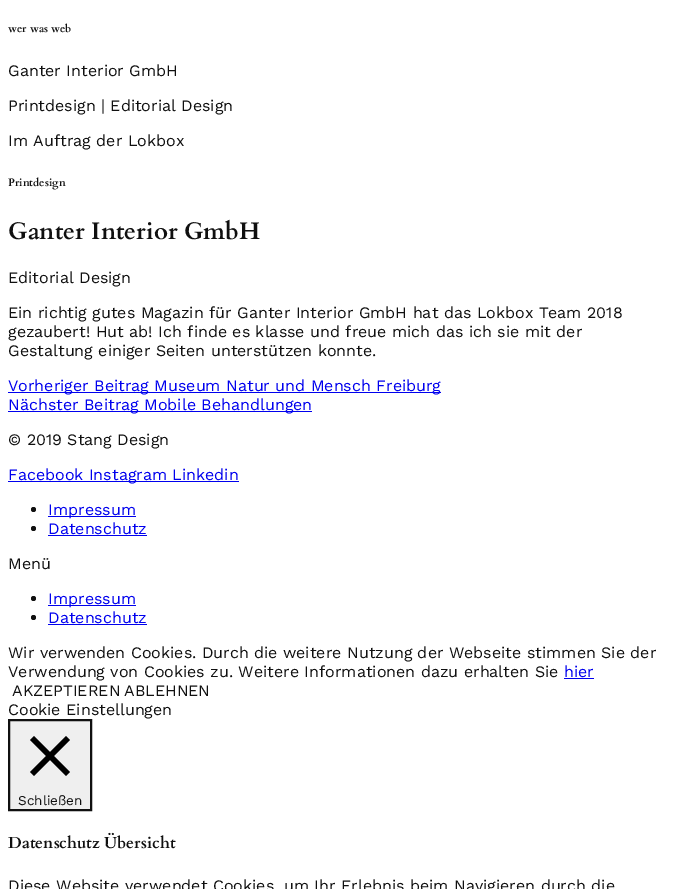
%!PS-Adobe-3.0
%%BoundingBox: 0 0 678 889
%%LanguageLevel: 3
%%Pages: 1
%%EndComments
%%BeginProlog
/setink { 3 { 255 div 3 1 roll } repeat setrgbcolor } def
/usefont { [ exch dup neg 0 0 3 -1 roll 0 0 ] selectfont } def
/drawtext { setink usefont moveto show } def
/fillbox { setink rectfill } def
/disc { newpath 0 360 arc closepath } def
%%EndProlog
%%BeginSetup
<< /PageSize [678 889] >> setpagedevice
%%EndSetup
%%Page: 1 1
0 889 translate 1 -1 scale
4 setmiterlimit
0 0 678 889 255 255 255 fillbox
(wer was web) 8 32 /Cardo-Bold 10.75 16 16 16 drawtext
(Ganter Interior GmbH) 8 76 /WorkSans-Regular 16 16 16 16 drawtext
(Printdesign | Editorial Design) 8 111 /WorkSans-Regular 16 16 16 16 drawtext
(Im Auftrag der Lokbox) 8 146 /WorkSans-Regular 16 16 16 16 drawtext
(Printdesign) 8 186 /Cardo-Bold 10.75 16 16 16 drawtext
(Ganter Interior GmbH) 8 239 /Cardo-Bold 24 16 16 16 drawtext
(Editorial Design) 8 283 /WorkSans-Regular 16 16 16 16 drawtext
(Ein richtig gutes Magazin für Ganter Interior GmbH hat das Lokbox Team 2018) 8 318 /WorkSans-Regular 16 16 16 16 drawtext
(gezaubert! Hut ab! Ich finde es klasse und freue mich das ich sie mit der) 8 337 /WorkSans-Regular 16 16 16 16 drawtext
(Gestaltung einiger Seiten unterstützen konnte.) 8 356 /WorkSans-Regular 16 16 16 16 drawtext
8 392 433 1 0 0 238 fillbox
(Vorheriger Beitrag Museum Natur und Mensch Freiburg) 8 391 /WorkSans-Regular 16 0 0 238 drawtext
8 411 304 1 0 0 238 fillbox
(Nächster Beitrag Mobile Behandlungen) 8 410 /WorkSans-Regular 16 0 0 238 drawtext
(© 2019 Stang Design) 8 445 /WorkSans-Regular 16 16 16 16 drawtext
8 481 231 1 0 0 238 fillbox
(Facebook Instagram Linkedin) 8 480 /WorkSans-Regular 16 0 0 238 drawtext
16 16 16 setink
33.5 509.5 2.5 disc fill
48 516 88 1 0 0 238 fillbox
(Impressum) 48 515 /WorkSans-Regular 16 0 0 238 drawtext
16 16 16 setink
33.5 528.5 2.5 disc fill
(Datenschutz) 48 534 /WorkSans-Regular 16 0 0 238 drawtext
48 535 99 1 0 0 238 fillbox
(Menü) 8 569 /WorkSans-Regular 16 16 16 16 drawtext
33.5 598.5 2.5 disc fill
48 605 88 1 0 0 238 fillbox
(Impressum) 48 604 /WorkSans-Regular 16 0 0 238 drawtext
16 16 16 setink
33.5 617.5 2.5 disc fill
(Datenschutz) 48 623 /WorkSans-Regular 16 0 0 238 drawtext
48 624 99 1 0 0 238 fillbox
(Wir verwenden Cookies. Durch die weitere Nutzung der Webseite stimmen Sie der) 8 658 /WorkSans-Regular 16 16 16 16 drawtext
(Verwendung von Cookies zu. Weitere Informationen dazu erhalten Sie) 8 677 /WorkSans-Regular 16 16 16 16 drawtext
(hier) 564 677 /WorkSans-Regular 16 0 0 238 drawtext
564 678 30 1 0 0 238 fillbox
(AKZEPTIEREN) 12 696 /WorkSans-Regular 16 16 16 16 drawtext
(ABLEHNEN) 124 696 /WorkSans-Regular 16 16 16 16 drawtext
(Cookie Einstellungen) 8 715 /WorkSans-Regular 16 16 16 16 drawtext
239 239 239 setink
9 720 moveto 91 720 lineto 91 810 lineto 9 810 lineto closepath gsave fill grestore
16 16 16 setink
2 setlinewidth
stroke
0 0 0 setink
70 740 moveto 66 736 lineto 50 752 lineto 34 736 lineto 30 740 lineto 46 756 lineto 30 772 lineto 34 776 lineto 50 760 lineto 66 776 lineto 70 772 lineto 54 756 lineto closepath fill
(Schließen) 18 805 /WorkSans-Regular 13.5 16 16 16 drawtext
(Datenschutz Übersicht) 8 848 /Cardo-Bold 16 16 16 16 drawtext
(Diese Website verwendet Cookies, um Ihr Erlebnis beim Navigieren durch die) 8 891 /WorkSans-Regular 16 16 16 16 drawtext
showpage
%%EOF
